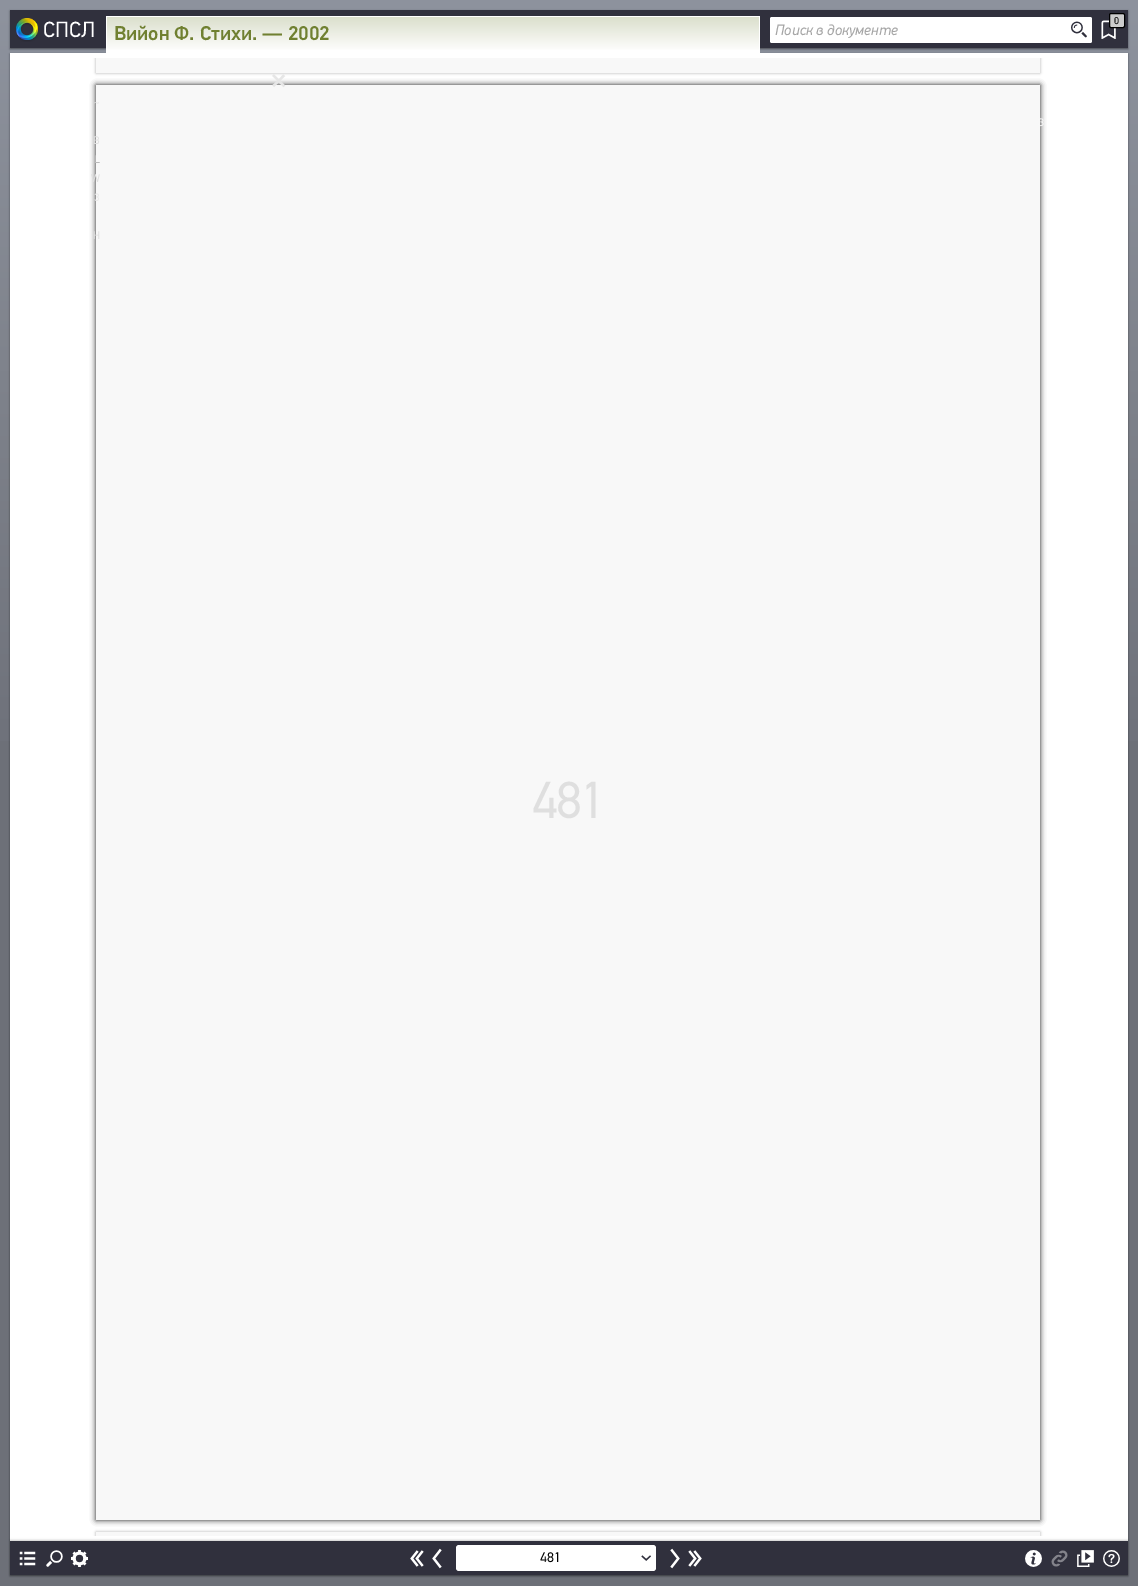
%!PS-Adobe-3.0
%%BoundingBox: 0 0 1138 1586
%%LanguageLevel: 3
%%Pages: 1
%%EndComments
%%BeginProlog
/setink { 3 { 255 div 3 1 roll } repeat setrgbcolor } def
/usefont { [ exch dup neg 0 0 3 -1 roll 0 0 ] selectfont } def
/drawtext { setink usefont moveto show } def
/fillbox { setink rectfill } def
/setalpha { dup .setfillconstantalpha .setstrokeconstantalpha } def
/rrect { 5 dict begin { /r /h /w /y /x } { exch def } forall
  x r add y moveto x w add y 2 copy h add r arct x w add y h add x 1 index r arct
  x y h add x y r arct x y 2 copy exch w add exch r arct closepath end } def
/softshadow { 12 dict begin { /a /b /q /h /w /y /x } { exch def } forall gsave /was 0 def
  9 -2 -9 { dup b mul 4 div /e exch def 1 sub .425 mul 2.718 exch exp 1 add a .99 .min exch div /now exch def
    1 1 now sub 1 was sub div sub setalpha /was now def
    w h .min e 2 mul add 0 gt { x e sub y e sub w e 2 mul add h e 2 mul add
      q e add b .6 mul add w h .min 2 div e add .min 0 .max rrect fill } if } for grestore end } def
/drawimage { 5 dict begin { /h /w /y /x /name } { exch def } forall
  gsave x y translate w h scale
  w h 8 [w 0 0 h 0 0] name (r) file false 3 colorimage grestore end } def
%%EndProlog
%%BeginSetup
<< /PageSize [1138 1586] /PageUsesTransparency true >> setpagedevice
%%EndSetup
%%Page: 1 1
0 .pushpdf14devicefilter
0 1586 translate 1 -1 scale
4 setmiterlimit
0 0 1138 1586 109 112 120 fillbox
gsave 0 0 moveto 1138 0 lineto 1138 741 lineto 0 741 lineto closepath clip newpath
<< /ShadingType 2 /ColorSpace /DeviceRGB /Coords [569 0 569 793] /Extend [true true] /Function << /FunctionType 2 /Domain [0 1] /C0 [0.557 0.576 0.62] /C1 [0.427 0.439 0.471] /N 1 >> >> shfill grestore
0 0 0 setink
10 11 1118 38 0 1 0.5 softshadow
10 54 1118 1522 0 1 0.5 softshadow
10 53 1118 1488 255 255 255 fillbox
gsave
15 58 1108 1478 rectclip
0 0 0 setink
96 -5 944 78 0 1.5 0.3 softshadow
grestore
10 10 1118 38 48 48 61 fillbox
(assets/img1.rgb) 16 18 22 24 drawimage
(СПСЛ) 43 37 /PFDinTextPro-Regular 22 255 255 255 drawtext
106 16 654 37 255 255 255 fillbox
gsave 107 17 moveto 759 17 lineto 759 50 lineto 107 50 lineto closepath clip newpath
<< /ShadingType 2 /ColorSpace /DeviceRGB /Coords [433 17 433 52] /Extend [true true] /Function << /FunctionType 2 /Domain [0 1] /C0 [0.859 0.875 0.8] /C1 [1 1 1] /N 1 >> >> shfill grestore
(Вийон Ф. Стихи. — 2002) 114 40 /PFDinTextPro-Medium 20 112 128 49 drawtext
255 255 255 setink
770 17 322 26 2 rrect fill
(Поиск в документе) 775 35 /PFDinTextPro-Italic 15 166 166 166 drawtext
(assets/img2.rgb) 1071 21 16 17 drawimage
(assets/img3.rgb) 1101 20 15 19 drawimage
204 204 204 setink
1109.5 13.5 15 14 1.5 rrect gsave fill grestore
0 0 0 setink
stroke
(0) 1114 24 /PFDinTextPro-Regular 10 0 0 0 drawtext
96 85 944 1435 0 3 0.9 softshadow
96 85 944 1435 248 248 248 fillbox
(×) 271 89 /PFDinTextPro-Medium 29 230 230 230 drawtext
96 58 944 15 248 248 248 fillbox
/PFDinTextPro-Regular 52 usefont
223 223 223 setink
532 818 moveto -2 0 (481) ashow
gsave
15 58 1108 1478 rectclip
0 0 0 setink
96 1532 944 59 0 1.5 0.3 softshadow
grestore
96 1532 944 4 248 248 248 fillbox
0 0 0 setink
10 1540 1118 34 0 1 0.2 softshadow
10 1541 1118 34 48 48 61 fillbox
(assets/img4.rgb) 19 1551 17 15 drawimage
(assets/img5.rgb) 46 1550 17 17 drawimage
(assets/img6.rgb) 71 1550 17 17 drawimage
(assets/img7.rgb) 410 1550 14 17 drawimage
(assets/img8.rgb) 432 1548 10 21 drawimage
255 255 255 setink
456 1545 200 26 3 rrect fill
(481) 540 1562 /PFDinTextPro-Regular 14 0 0 0 drawtext
(assets/img9.rgb) 641 1555 10 6 drawimage
(assets/img10.rgb) 670 1548 10 21 drawimage
(assets/img11.rgb) 688 1550 14 17 drawimage
(assets/img12.rgb) 1025 1550 17 17 drawimage
(assets/img13.rgb) 1051 1550 17 17 drawimage
(assets/img14.rgb) 1077 1550 17 17 drawimage
(assets/img15.rgb) 1103 1550 17 17 drawimage
(~) 94 106 /PFDinTextPro-Regular 11 230 230 230 drawtext
(B) 93 144 /PFDinTextPro-Regular 11 223 223 223 drawtext
(L) 94 163 /PFDinTextPro-Regular 11 186 186 186 drawtext
(W) 91 182 /PFDinTextPro-Regular 11 223 223 223 drawtext
(3) 94 201 /PFDinTextPro-Regular 11 230 230 230 drawtext
(H) 93 239 /PFDinTextPro-Regular 11 223 223 223 drawtext
(З) 1038 126 /PFDinTextPro-Regular 11 249 249 249 drawtext
.poppdf14devicefilter showpage
%%EOF
